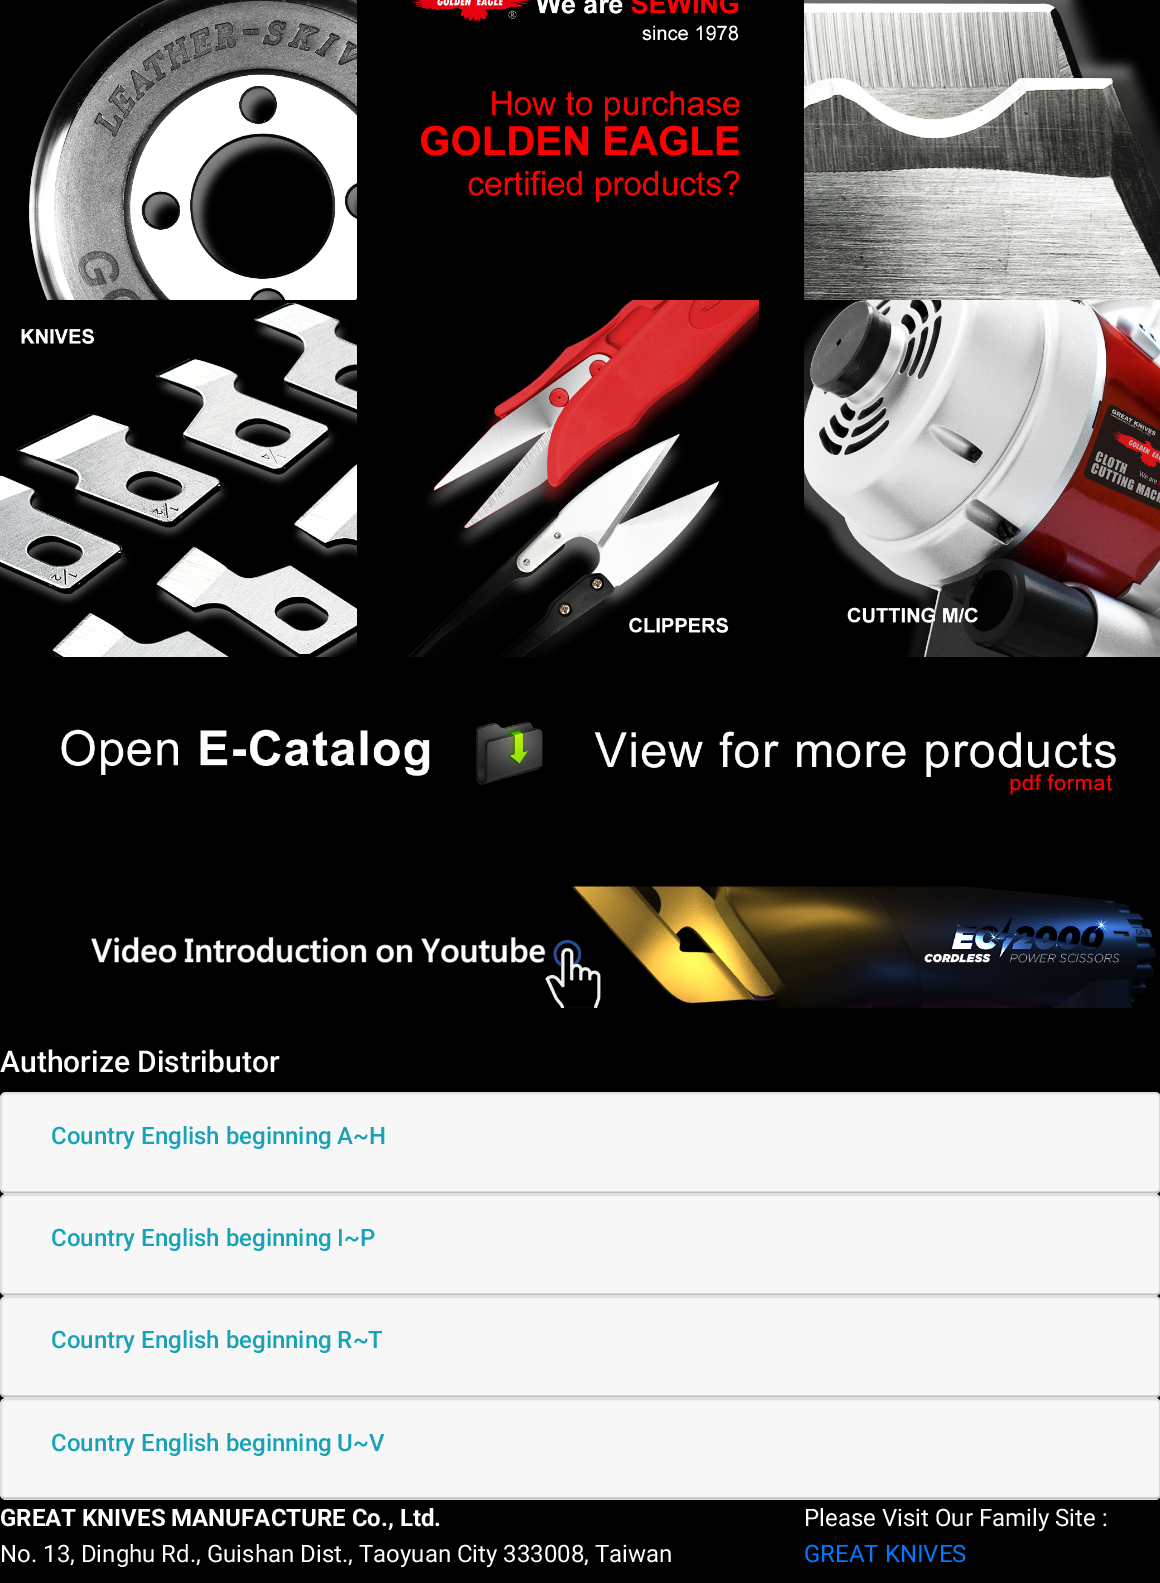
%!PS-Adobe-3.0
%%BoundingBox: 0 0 1160 1583
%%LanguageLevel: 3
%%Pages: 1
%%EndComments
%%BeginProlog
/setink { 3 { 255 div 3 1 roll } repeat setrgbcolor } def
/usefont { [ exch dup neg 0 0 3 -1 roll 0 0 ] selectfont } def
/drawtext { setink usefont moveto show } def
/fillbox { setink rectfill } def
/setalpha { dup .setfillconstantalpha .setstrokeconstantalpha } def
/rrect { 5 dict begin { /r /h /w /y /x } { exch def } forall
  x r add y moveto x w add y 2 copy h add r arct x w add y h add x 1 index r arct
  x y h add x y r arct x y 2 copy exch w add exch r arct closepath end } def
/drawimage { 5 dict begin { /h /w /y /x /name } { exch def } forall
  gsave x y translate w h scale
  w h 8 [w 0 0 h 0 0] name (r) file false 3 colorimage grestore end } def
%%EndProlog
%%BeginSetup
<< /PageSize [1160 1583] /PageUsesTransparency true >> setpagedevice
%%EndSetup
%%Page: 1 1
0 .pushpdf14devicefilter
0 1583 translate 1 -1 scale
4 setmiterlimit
0 0 1160 1583 0 0 0 fillbox
(assets/img1.rgb) 29 0 328 300 drawimage
(assets/img2.rgb) 411 0 329 202 drawimage
(assets/img3.rgb) 804 0 356 300 drawimage
(assets/img4.rgb) 0 303 357 354 drawimage
(assets/img5.rgb) 407 300 352 357 drawimage
(assets/img6.rgb) 804 300 356 357 drawimage
(assets/img7.rgb) 61 721 1055 74 drawimage
(assets/img8.rgb) 91 886 1065 122 drawimage
(Authorize Distributor) 0 1072 /Roboto-Medium 30 255 255 255 drawtext
0 1092 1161 102 6 rrect fill
0.12 setalpha
0 0 0 setink
2 setlinewidth
1 1093 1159 100 5 rrect stroke
0.03 setalpha
2 1094 1158 99 0 0 0 fillbox
0.12 setalpha
2 1191 1158 2 0 0 0 fillbox
1 setalpha
(Country English beginning A~H) 51 1144 /Roboto-Medium 24 23 162 184 drawtext
255 255 255 setink
0 1194 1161 102 6 rrect fill
0.12 setalpha
0 0 0 setink
1 1195 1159 100 5 rrect stroke
0.03 setalpha
2 1196 1158 99 0 0 0 fillbox
0.12 setalpha
2 1293 1158 2 0 0 0 fillbox
1 setalpha
(Country English beginning I~P) 51 1246 /Roboto-Medium 24 23 162 184 drawtext
255 255 255 setink
0 1296 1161 102 6 rrect fill
0.12 setalpha
0 0 0 setink
1 1297 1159 100 5 rrect stroke
0.03 setalpha
2 1298 1158 99 0 0 0 fillbox
0.12 setalpha
2 1395 1158 2 0 0 0 fillbox
1 setalpha
(Country English beginning R~T) 51 1348 /Roboto-Medium 24 23 162 184 drawtext
255 255 255 setink
0 1398 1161 102 6 rrect fill
0.12 setalpha
0 0 0 setink
1 1399 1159 100 5 rrect stroke
0.03 setalpha
2 1400 1158 99 0 0 0 fillbox
0.12 setalpha
2 1497 1158 2 0 0 0 fillbox
1 setalpha
(Country English beginning U~V) 51 1451 /Roboto-Medium 24 23 162 184 drawtext
(GREAT KNIVES MANUFACTURE Co., Ltd.) 0 1526 /Roboto-Bold 24 255 255 255 drawtext
(No. 13, Dinghu Rd., Guishan Dist., Taoyuan City 333008, Taiwan) 0 1562 /Roboto-Regular 24 255 255 255 drawtext
(Please Visit Our Family Site :) 804 1526 /Roboto-Regular 24 255 255 255 drawtext
(GREAT KNIVES) 804 1562 /Roboto-Regular 24 0 123 255 drawtext
.poppdf14devicefilter showpage
%%EOF
